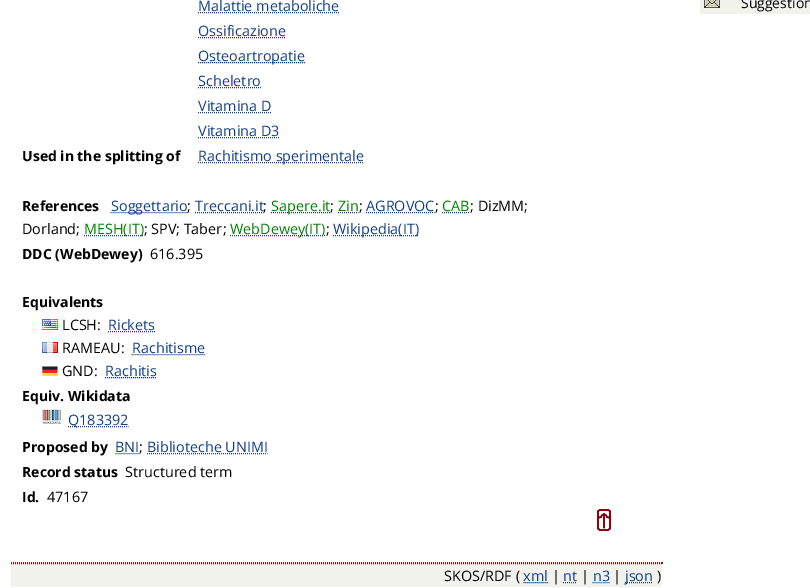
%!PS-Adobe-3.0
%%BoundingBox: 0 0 810 588
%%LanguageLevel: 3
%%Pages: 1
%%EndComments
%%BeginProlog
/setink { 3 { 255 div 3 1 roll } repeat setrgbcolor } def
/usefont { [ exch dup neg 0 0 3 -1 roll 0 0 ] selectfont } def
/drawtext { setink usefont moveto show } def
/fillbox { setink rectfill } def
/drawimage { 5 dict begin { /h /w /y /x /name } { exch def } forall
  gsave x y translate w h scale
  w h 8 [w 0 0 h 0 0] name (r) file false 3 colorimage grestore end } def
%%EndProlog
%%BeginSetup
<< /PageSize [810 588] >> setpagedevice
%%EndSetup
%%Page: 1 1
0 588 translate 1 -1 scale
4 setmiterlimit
0 0 810 588 255 255 255 fillbox
(Malattie metaboliche) 198 11 /OpenSans-Regular 14.4 19 63 132 drawtext
[1 1] 0 setdash
198 12.5 moveto 339.5 12.5 lineto stroke
(Ossificazione) 198 36 /OpenSans-Regular 14.4 19 63 132 drawtext
198 37.5 moveto 286 37.5 lineto stroke
198 62.5 moveto 305 62.5 lineto stroke
(Osteoartropatie) 198 61 /OpenSans-Regular 14.4 19 63 132 drawtext
(Scheletro) 198 86 /OpenSans-Regular 14.4 19 63 132 drawtext
198 87.5 moveto 261 87.5 lineto stroke
(Vitamina D) 198 111 /OpenSans-Regular 14.4 19 63 132 drawtext
198 112.5 moveto 271.5 112.5 lineto stroke
(Vitamina D3) 198 136 /OpenSans-Regular 14.4 19 63 132 drawtext
198 137.5 moveto 279.5 137.5 lineto stroke
(Used in the splitting of) 22 161 /OpenSans-Bold 14 0 0 0 drawtext
19 63 132 setink
198 162.5 moveto 364 162.5 lineto stroke
(Rachitismo sperimentale) 198 161 /OpenSans-Regular 14.4 19 63 132 drawtext
(References) 22 211 /OpenSans-Bold 14 0 0 0 drawtext
(;) 187 211 /OpenSans-Regular 14.4 0 0 0 drawtext
19 63 132 setink
110.5 212.5 moveto 187.5 212.5 lineto stroke
(Soggettario) 111 211 /OpenSans-Regular 14.4 19 63 132 drawtext
(;) 263 211 /OpenSans-Regular 14.4 0 0 0 drawtext
(Treccani.it) 195 211 /OpenSans-Regular 14.4 19 63 132 drawtext
195 212.5 moveto 263.5 212.5 lineto stroke
271 212.5 moveto 330.5 212.5 lineto stroke
(Sapere.it) 271 211 /OpenSans-Regular 14.4 0 128 0 drawtext
(;) 330 211 /OpenSans-Regular 14.4 0 0 0 drawtext
(Zin) 338 211 /OpenSans-Regular 14.4 0 128 0 drawtext
19 63 132 setink
338 212.5 moveto 358.5 212.5 lineto stroke
(;) 359 211 /OpenSans-Regular 14.4 0 0 0 drawtext
(AGROVOC) 366 211 /OpenSans-Regular 14.4 19 63 132 drawtext
366 212.5 moveto 434.5 212.5 lineto stroke
(;) 435 211 /OpenSans-Regular 14.4 0 0 0 drawtext
(CAB) 442 211 /OpenSans-Regular 14.4 0 128 0 drawtext
19 63 132 setink
442 212.5 moveto 469.5 212.5 lineto stroke
(; DizMM) 470 211 /OpenSans-Regular 14.4 0 0 0 drawtext
(;) 524 211 /OpenSans-Regular 14.4 0 0 0 drawtext
(Dorland) 22 234 /OpenSans-Regular 14.4 0 0 0 drawtext
(;) 76 234 /OpenSans-Regular 14.4 0 0 0 drawtext
19 63 132 setink
84 235.5 moveto 143.5 235.5 lineto stroke
(MESH\(IT\)) 84 234 /OpenSans-Regular 14.4 0 128 0 drawtext
(;) 144 234 /OpenSans-Regular 14.4 0 0 0 drawtext
(; Taber) 176 234 /OpenSans-Regular 14.4 0 0 0 drawtext
(SPV) 151 234 /OpenSans-Regular 14.4 0 0 0 drawtext
(;) 223 234 /OpenSans-Regular 14.4 0 0 0 drawtext
19 63 132 setink
230 235.5 moveto 325.5 235.5 lineto stroke
(WebDewey\(IT\)) 230 234 /OpenSans-Regular 14.4 0 128 0 drawtext
(;) 326 234 /OpenSans-Regular 14.4 0 0 0 drawtext
19 63 132 setink
333 235.5 moveto 419 235.5 lineto stroke
(Wikipedia\(IT\)) 333 234 /OpenSans-Regular 14.4 19 63 132 drawtext
(DDC \(WebDewey\)) 22 259 /OpenSans-Bold 14 0 0 0 drawtext
(616.395) 150 259 /OpenSans-Regular 14.4 0 0 0 drawtext
(Equivalents) 22 307 /OpenSans-Bold 14 0 0 0 drawtext
(assets/img1.rgb) 42 319 16 11 drawimage
(LCSH:) 62 330 /OpenSans-Regular 14.4 0 0 0 drawtext
(Rickets) 108 330 /OpenSans-Regular 14.4 19 63 132 drawtext
108 331.5 moveto 155 331.5 lineto stroke
(assets/img2.rgb) 42 342 16 11 drawimage
(RAMEAU:) 62 353 /OpenSans-Regular 14.4 0 0 0 drawtext
(Rachitisme) 132 353 /OpenSans-Regular 14.4 19 63 132 drawtext
131.5 354.5 moveto 205 354.5 lineto stroke
(assets/img3.rgb) 42 366 16 10 drawimage
(GND:) 62 376 /OpenSans-Regular 14.4 0 0 0 drawtext
(Rachitis) 105 376 /OpenSans-Regular 14.4 19 63 132 drawtext
105 377.5 moveto 156.5 377.5 lineto stroke
(Equiv. Wikidata) 22 401 /OpenSans-Bold 14 0 0 0 drawtext
(assets/img4.rgb) 42 409 20 15 drawimage
19 63 132 setink
68 426.5 moveto 128.5 426.5 lineto stroke
(Q183392) 68 425 /OpenSans-Regular 14.4 19 63 132 drawtext
(Proposed by) 22 452 /OpenSans-Bold 14 0 0 0 drawtext
(BNI) 115 452 /OpenSans-Regular 14.4 19 63 132 drawtext
115.5 453.5 moveto 139.5 453.5 lineto stroke
(;) 139 452 /OpenSans-Regular 14.4 0 0 0 drawtext
(Biblioteche UNIMI) 147 452 /OpenSans-Regular 14.4 19 63 132 drawtext
147 453.5 moveto 267.5 453.5 lineto stroke
(Record status) 22 477 /OpenSans-Bold 14 0 0 0 drawtext
(Structured term) 125 477 /OpenSans-Regular 14.4 0 0 0 drawtext
(Id.) 22 502 /OpenSans-Bold 14 0 0 0 drawtext
(47167) 47 502 /OpenSans-Regular 14.4 0 0 0 drawtext
(assets/img5.rgb) 597 509 14 22 drawimage
11 562 650 25 241 242 236 fillbox
161 12 6 setink
11 562.5 moveto 663 562.5 lineto stroke
662 562 1 2 161 12 6 fillbox
11 563.5 moveto 663 563.5 lineto stroke
(SKOS/RDF \() 444 581 /OpenSans-Regular 14.4 0 0 0 drawtext
(xml) 523 581 /OpenSans-Regular 14.4 19 63 132 drawtext
523.5 582.5 moveto 548 582.5 lineto stroke
(|) 552 581 /OpenSans-Regular 14.4 0 0 0 drawtext
(nt) 563 581 /OpenSans-Regular 14.4 19 63 132 drawtext
563 582.5 moveto 577 582.5 lineto stroke
(|) 581 581 /OpenSans-Regular 14.4 0 0 0 drawtext
(n3) 593 581 /OpenSans-Regular 14.4 19 63 132 drawtext
592.5 582.5 moveto 609.5 582.5 lineto stroke
(|) 613 581 /OpenSans-Regular 14.4 0 0 0 drawtext
19 63 132 setink
625 582.5 moveto 653 582.5 lineto stroke
(json) 625 581 /OpenSans-Regular 14.4 19 63 132 drawtext
(\)) 657 581 /OpenSans-Regular 14.4 0 0 0 drawtext
700 0 110 14 241 242 236 fillbox
(assets/img6.rgb) 704 0 16 8 drawimage
(Suggestion) 741 8 /OpenSans-Regular 14 0 0 0 drawtext
showpage
%%EOF
